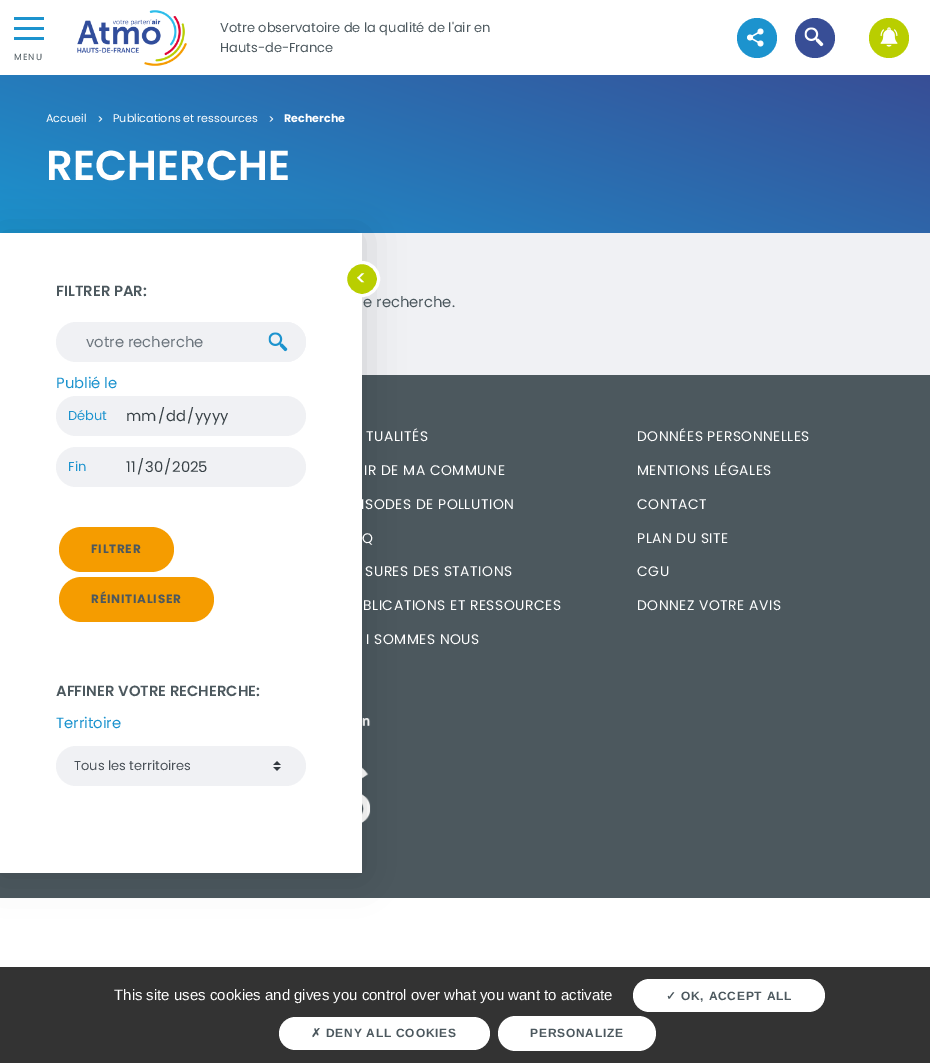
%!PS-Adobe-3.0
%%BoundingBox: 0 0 930 1063
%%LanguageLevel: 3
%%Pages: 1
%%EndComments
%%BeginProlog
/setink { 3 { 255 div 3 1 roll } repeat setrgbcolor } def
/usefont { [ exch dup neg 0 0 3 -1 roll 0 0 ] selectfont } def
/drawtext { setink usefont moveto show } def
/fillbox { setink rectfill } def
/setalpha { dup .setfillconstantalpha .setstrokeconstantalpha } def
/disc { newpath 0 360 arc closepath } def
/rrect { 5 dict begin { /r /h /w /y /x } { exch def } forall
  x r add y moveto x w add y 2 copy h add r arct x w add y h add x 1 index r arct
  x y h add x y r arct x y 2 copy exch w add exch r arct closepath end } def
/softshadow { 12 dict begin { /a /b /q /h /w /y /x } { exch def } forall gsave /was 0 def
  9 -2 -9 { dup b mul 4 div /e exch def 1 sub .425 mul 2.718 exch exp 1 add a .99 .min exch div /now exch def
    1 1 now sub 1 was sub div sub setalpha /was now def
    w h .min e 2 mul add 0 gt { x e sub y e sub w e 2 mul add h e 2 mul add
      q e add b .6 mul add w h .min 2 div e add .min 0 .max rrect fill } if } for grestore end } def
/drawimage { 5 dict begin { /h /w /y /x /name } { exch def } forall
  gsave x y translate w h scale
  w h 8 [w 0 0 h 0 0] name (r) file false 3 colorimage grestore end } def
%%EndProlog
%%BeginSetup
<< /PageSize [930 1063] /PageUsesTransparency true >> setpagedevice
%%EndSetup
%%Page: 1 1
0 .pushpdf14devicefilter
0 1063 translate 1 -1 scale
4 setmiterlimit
0 0 930 1063 255 255 255 fillbox
(assets/img1.rgb) 77 10 110 56 drawimage
(Votre observatoire de la qualité de l'air en) 220 32 /Poppins-Regular 13 76 88 94 drawtext
(Hauts-de-France) 220 52 /Poppins-Regular 13 76 88 94 drawtext
28 147 206 setink
757 38 20 disc fill
(assets/img2.rgb) 747 28 17 19 drawimage
56 78 150 setink
815 38 20 disc fill
(assets/img3.rgb) 804 27 20 20 drawimage
185 206 0 setink
889 38 20 disc fill
(assets/img4.rgb) 880 27 18 20 drawimage
14 27 30 3 28 147 206 fillbox
14 17 30 3 28 147 206 fillbox
14 37 30 3 28 147 206 fillbox
/Poppins-Regular 9 usefont
76 88 94 setink
14 60 moveto 1 0 (MENU) ashow
gsave 0 75 moveto 930 75 lineto 930 233 lineto 0 233 lineto closepath clip newpath
<< /ShadingType 2 /ColorSpace /DeviceRGB /Coords [397 362 533 -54] /Extend [true true] /Function << /FunctionType 2 /Domain [0 1] /C0 [0.11 0.576 0.808] /C1 [0.22 0.306 0.588] /N 1 >> >> shfill grestore
(Accueil) 46 122 /Poppins-Regular 11.1 255 255 255 drawtext
(>) 97 123 /Poppins-Medium 11.1 255 255 255 drawtext
(Publications et ressources) 113 122 /Poppins-Regular 11.1 255 255 255 drawtext
(>) 268 123 /Poppins-Medium 11.1 255 255 255 drawtext
(Recherche) 284 122 /Poppins-Bold 11.1 255 255 255 drawtext
(RECHERCHE) 46 180 /Poppins-SemiBold 41.75 255 255 255 drawtext
362 233 568 142 240 241 244 fillbox
0 375 930 523 76 88 94 fillbox
(assets/img7.rgb) 362 718 9 105 drawimage
0 0 0 setink
0 234 362 640 0 20 0.15 softshadow
0 233 362 640 255 255 255 fillbox
(e recherche.) 363 307 /Poppins-Regular 14.8 76 88 94 drawtext
185 206 0 setink
362 279 16.5 disc gsave fill grestore
255 255 255 setink
3 setlinewidth
stroke
(<) 355 285 /Poppins-Medium 20 255 255 255 drawtext
(FILTRER PAR:) 56 296 /Poppins-SemiBold 14.8 76 88 94 drawtext
240 241 244 setink
251 322 moveto 286 322 lineto 297 322 306 331 306 342 curveto 306 353 297 362 286 362 curveto 251 362 lineto closepath fill
76 322 moveto 252 322 lineto 252 362 lineto 76 362 lineto 65 362 56 353 56 342 curveto 56 331 65 322 76 322 curveto closepath fill
(votre recherche) 86 347 /Poppins-Regular 14.8 108 117 125 drawtext
240 241 244 setink
266 322 moveto 286 322 lineto 297 322 306 331 306 342 curveto 306 353 297 362 286 362 curveto 266 362 lineto closepath fill
(assets/img5.rgb) 268 332 20 20 drawimage
(Publié le) 56 388 /Poppins-Regular 14.8 28 147 206 drawtext
240 241 244 setink
76 396 moveto 108 396 lineto 108 436 lineto 76 436 lineto 65 436 56 427 56 416 curveto 56 405 65 396 76 396 curveto closepath fill
(Début) 68 420 /Poppins-Regular 13 28 147 206 drawtext
240 241 244 setink
107 396 moveto 286 396 lineto 297 396 306 405 306 416 curveto 306 427 297 436 286 436 curveto 107 436 lineto closepath fill
(mm) 126 421 /Poppins-Regular 14.8 57 66 71 drawtext
(/) 158 421 /Poppins-Regular 14.8 57 66 71 drawtext
(dd) 166 421 /Poppins-Regular 14.8 57 66 71 drawtext
(/) 187 421 /Poppins-Regular 14.8 57 66 71 drawtext
(yyyy) 195 421 /Poppins-Regular 14.8 57 66 71 drawtext
240 241 244 setink
76 447 moveto 108 447 lineto 108 487 lineto 76 487 lineto 65 487 56 478 56 467 curveto 56 456 65 447 76 447 curveto closepath fill
(Fin) 68 471 /Poppins-Regular 13 28 147 206 drawtext
240 241 244 setink
107 447 moveto 286 447 lineto 297 447 306 456 306 467 curveto 306 478 297 487 286 487 curveto 107 487 lineto closepath fill
(11) 126 472 /Poppins-Regular 14.8 57 66 71 drawtext
(/) 137 472 /Poppins-Regular 14.8 57 66 71 drawtext
(30) 145 472 /Poppins-Regular 14.8 57 66 71 drawtext
(/) 164 472 /Poppins-Regular 14.8 57 66 71 drawtext
(2025) 172 472 /Poppins-Regular 14.8 57 66 71 drawtext
245 156 0 setink
59 527 115 45 22.5 rrect fill
/Poppins-Bold 12 usefont
76 88 94 setink
91 553 moveto 0.75 0 (FILTRER) ashow
245 156 0 setink
59 577 155 45 22.5 rrect fill
76 88 94 setink
91 603 moveto 0.75 0 (RÉINITIALISER) ashow
(AFFINER VOTRE RECHERCHE:) 56 696 /Poppins-SemiBold 14.8 76 88 94 drawtext
(Territoire) 56 728 /Poppins-Regular 14.8 28 147 206 drawtext
240 241 244 setink
56 746 250 40 20 rrect fill
(assets/img6.rgb) 273 761 8 10 drawimage
(Tous les territoires) 74 770 /Poppins-Regular 13 73 80 87 drawtext
/Poppins-Regular 13.9 usefont
255 255 255 setink
366 441 moveto 0.5 0 (TUALITÉS) ashow
637 441 moveto 0.5 0 (DONNÉES PERSONNELLES) ashow
364 475 moveto 0.5 0 (IR DE MA COMMUNE) ashow
637 475 moveto 0.5 0 (MENTIONS LÉGALES) ashow
361 509 moveto 0.5 0 (ISODES DE POLLUTION) ashow
637 509 moveto 0.5 0 (CONTACT) ashow
362 543 moveto 0.5 0 (Q) ashow
637 543 moveto 0.5 0 (PLAN DU SITE) ashow
365 576 moveto 0.5 0 (SURES DES STATIONS) ashow
637 576 moveto 0.5 0 (CGU) ashow
363 610 moveto 0.5 0 (BLICATIONS ET RESSOURCES) ashow
637 610 moveto 0.5 0 (DONNEZ VOTRE AVIS) ashow
366 644 moveto 0.5 0 (I SOMMES NOUS) ashow
0 967 930 96 51 51 51 fillbox
(This site uses cookies and gives you control over what you want to activate) 114 1000 /LiberationSans-Regular 15 255 255 255 drawtext
633 979 192 33 16.5 rrect fill
/DejaVuSans-Bold 12 usefont
76 88 94 setink
666 1000 moveto 0.75 0 (✓) ashow
/LiberationSans-Bold 12 usefont
681 1000 moveto 0.75 0 (OK, ACCEPT ALL) ashow
255 255 255 setink
279 1017 211 33 16.5 rrect fill
/DejaVuSans-Bold 12 usefont
76 88 94 setink
311 1037 moveto 0.75 0 (✗) ashow
/LiberationSans-Bold 12 usefont
326 1037 moveto 0.75 0 (DENY ALL COOKIES) ashow
255 255 255 setink
498 1016 158 35 17.5 rrect fill
76 88 94 setink
530 1037 moveto 0.75 0 (PERSONALIZE) ashow
.poppdf14devicefilter showpage
%%EOF
